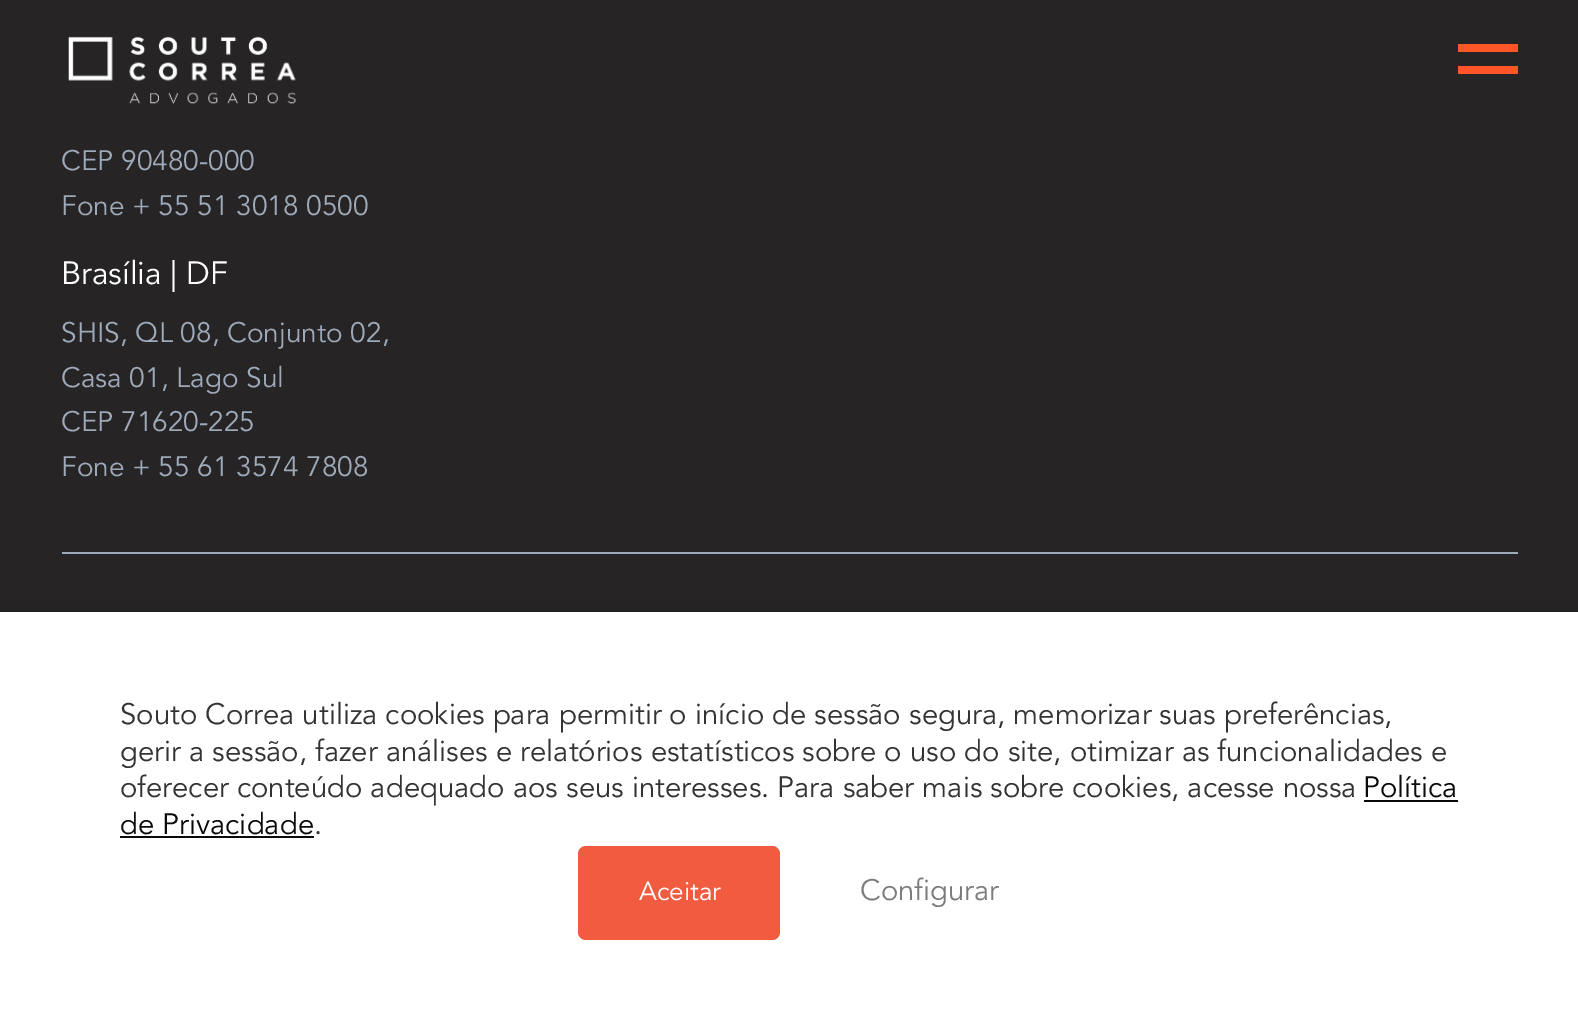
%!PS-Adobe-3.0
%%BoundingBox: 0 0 1578 1027
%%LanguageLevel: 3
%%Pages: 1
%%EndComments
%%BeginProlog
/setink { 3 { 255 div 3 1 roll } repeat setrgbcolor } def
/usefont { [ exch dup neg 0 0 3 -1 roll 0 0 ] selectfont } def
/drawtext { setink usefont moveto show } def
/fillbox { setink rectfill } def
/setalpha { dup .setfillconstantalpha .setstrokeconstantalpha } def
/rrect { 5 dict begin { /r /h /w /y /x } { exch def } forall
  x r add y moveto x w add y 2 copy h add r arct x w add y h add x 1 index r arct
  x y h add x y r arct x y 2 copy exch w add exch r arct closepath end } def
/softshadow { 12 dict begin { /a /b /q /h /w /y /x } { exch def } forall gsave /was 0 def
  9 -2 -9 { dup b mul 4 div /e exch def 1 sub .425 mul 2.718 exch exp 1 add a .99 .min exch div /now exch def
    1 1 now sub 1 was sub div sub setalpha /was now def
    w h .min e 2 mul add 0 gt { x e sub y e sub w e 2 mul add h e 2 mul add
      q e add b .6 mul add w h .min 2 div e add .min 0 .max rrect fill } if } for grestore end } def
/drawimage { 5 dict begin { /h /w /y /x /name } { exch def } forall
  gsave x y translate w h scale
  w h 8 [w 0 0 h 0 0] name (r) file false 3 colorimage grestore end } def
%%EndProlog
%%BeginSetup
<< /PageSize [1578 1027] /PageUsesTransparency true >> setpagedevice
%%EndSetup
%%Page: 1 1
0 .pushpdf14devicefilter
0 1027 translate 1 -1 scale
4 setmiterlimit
0 0 1578 1027 38 36 36 fillbox
(assets/img1.rgb) 68 36 228 68 drawimage
1458 44 60 8 255 85 39 fillbox
1458 66 60 8 255 85 39 fillbox
62 552 1456 2 158 169 185 fillbox
(CEP 90480-000) 61 170 /Avenir-Regular 28 158 169 185 drawtext
(Fone + 55 51 3018 0500) 61 215 /Avenir-Regular 28 158 169 185 drawtext
(Brasília | DF) 61 284 /Avenir-Regular 32 255 255 255 drawtext
(SHIS, QL 08, Conjunto 02,) 61 342 /Avenir-Regular 28 158 169 185 drawtext
(Casa 01, Lago Sul) 61 387 /Avenir-Regular 28 158 169 185 drawtext
(CEP 71620-225) 61 431 /Avenir-Regular 28 158 169 185 drawtext
(Fone + 55 61 3574 7808) 61 476 /Avenir-Regular 28 158 169 185 drawtext
0 0 0 setink
0 622 1578 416 0 10 0.5 softshadow
0 612 1578 415 255 255 255 fillbox
(Souto Correa utiliza cookies para permitir o início de sessão segura, memorizar suas preferências,) 120 724 /Avenir-Regular 29.35 51 51 51 drawtext
(gerir a sessão, fazer análises e relatórios estatísticos sobre o uso do site, otimizar as funcionalidades e) 120 761 /Avenir-Regular 29.35 51 51 51 drawtext
(oferecer conteúdo adequado aos seus interesses. Para saber mais sobre cookies, acesse nossa) 120 797 /Avenir-Regular 29.35 51 51 51 drawtext
(Política) 1363 797 /Avenir-Regular 29.35 10 10 10 drawtext
1364 800 94 2 10 10 10 fillbox
(de Privacidade) 120 834 /Avenir-Regular 29.35 10 10 10 drawtext
120 836 194 2 10 10 10 fillbox
(.) 314 834 /Avenir-Regular 29.35 51 51 51 drawtext
241 91 64 setink
578 846 202 94 8 rrect fill
(Aceitar) 639 900 /Avenir-Regular 26 255 255 255 drawtext
(Configurar) 860 900 /Avenir-Regular 29.35 124 124 124 drawtext
.poppdf14devicefilter showpage
%%EOF
